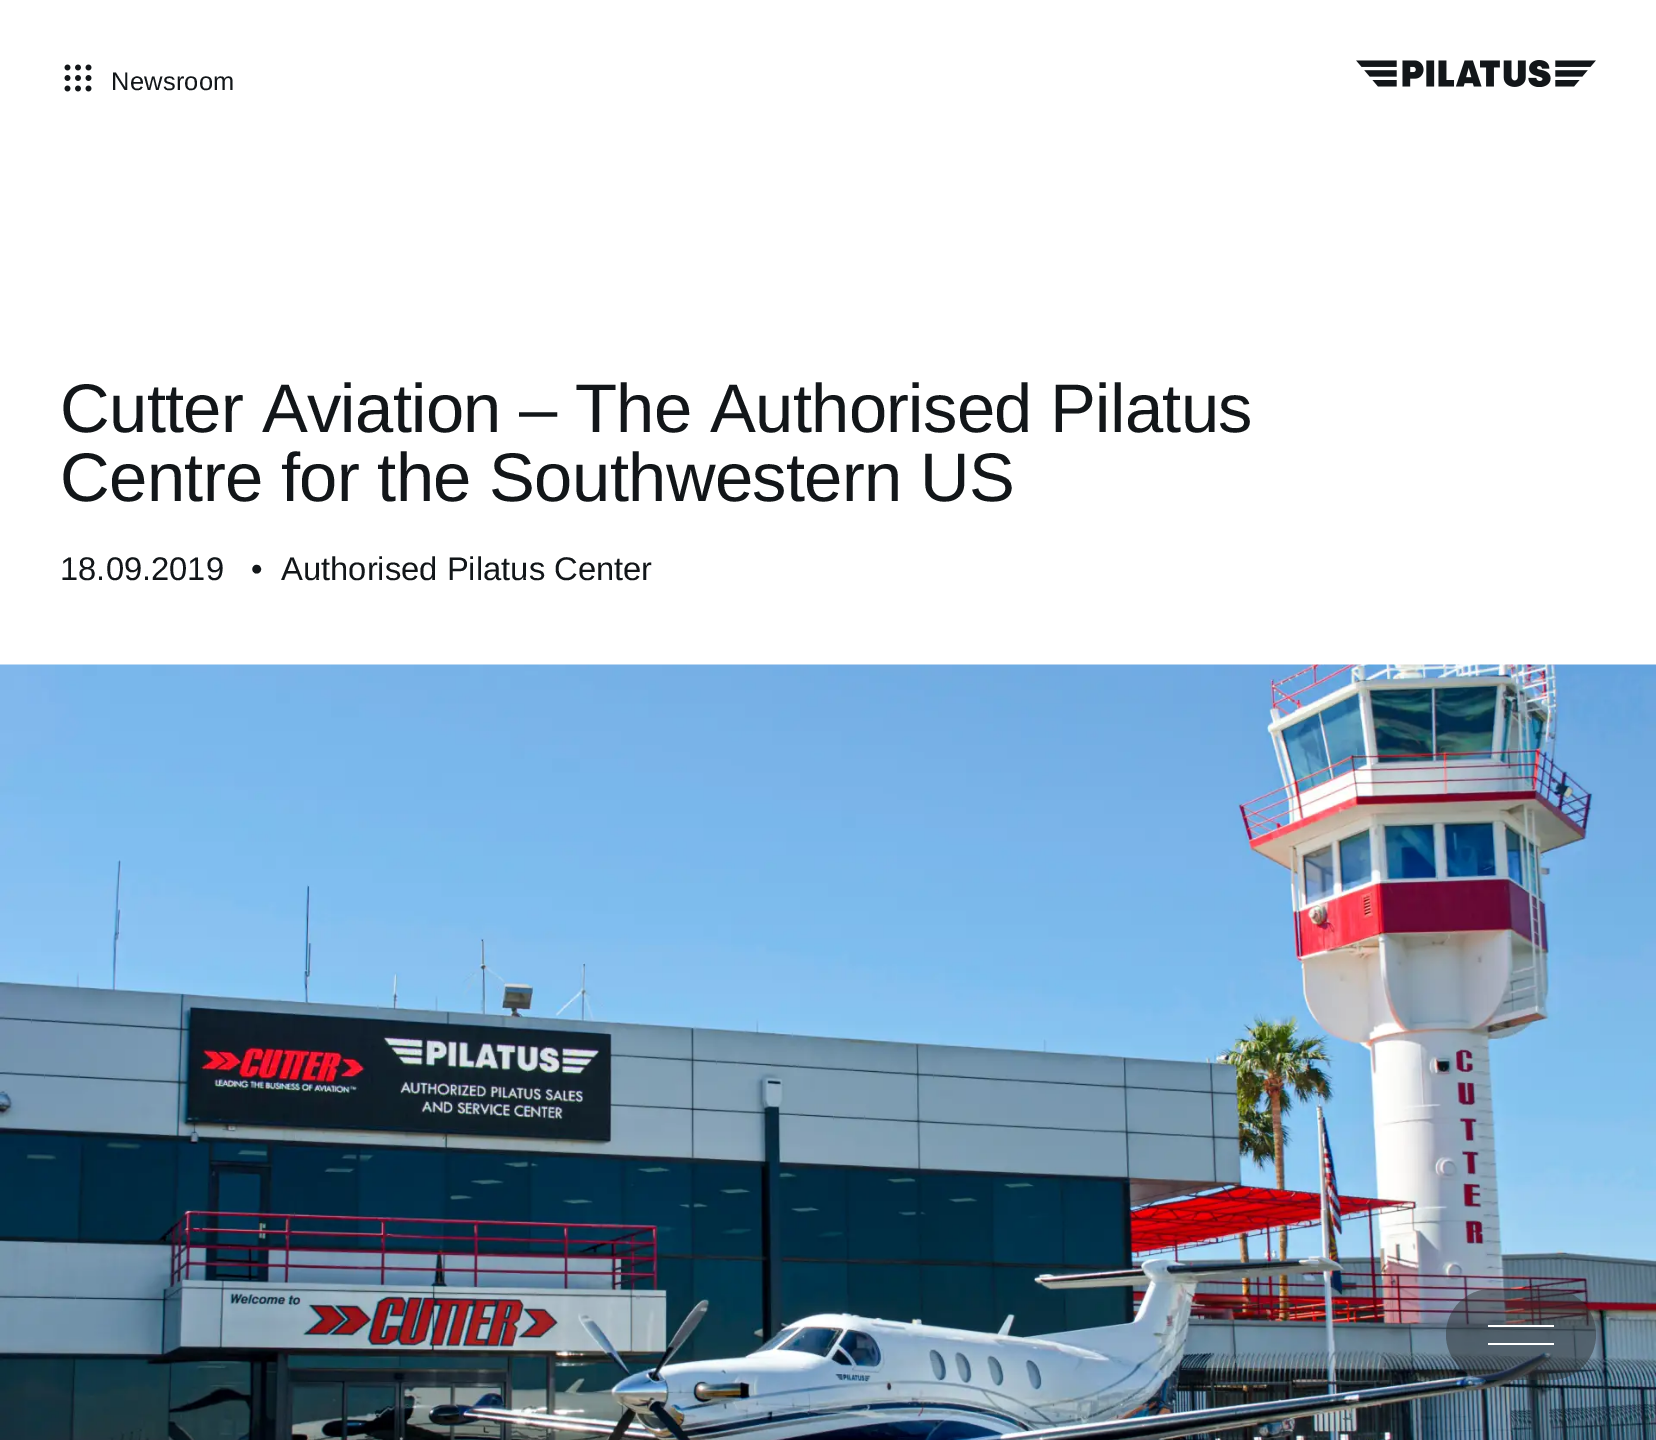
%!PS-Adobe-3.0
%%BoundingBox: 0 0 1656 1440
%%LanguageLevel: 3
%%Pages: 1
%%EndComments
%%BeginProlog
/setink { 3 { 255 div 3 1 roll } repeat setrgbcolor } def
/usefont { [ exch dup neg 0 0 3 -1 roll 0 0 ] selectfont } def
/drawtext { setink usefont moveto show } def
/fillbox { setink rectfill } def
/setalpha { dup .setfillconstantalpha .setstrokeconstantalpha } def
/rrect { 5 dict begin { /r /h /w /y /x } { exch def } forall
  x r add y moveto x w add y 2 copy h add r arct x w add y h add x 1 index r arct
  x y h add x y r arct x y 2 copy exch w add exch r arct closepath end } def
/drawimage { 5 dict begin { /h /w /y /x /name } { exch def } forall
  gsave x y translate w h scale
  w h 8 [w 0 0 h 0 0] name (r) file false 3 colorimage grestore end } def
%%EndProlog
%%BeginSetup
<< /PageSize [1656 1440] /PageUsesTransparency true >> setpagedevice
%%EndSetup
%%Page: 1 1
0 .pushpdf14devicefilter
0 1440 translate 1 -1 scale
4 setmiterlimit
0 0 1656 1440 255 255 255 fillbox
(assets/img1.rgb) 64 64 28 28 drawimage
/LiberationSans-Regular 25.5 usefont
18 22 25 setink
111 90 moveto 0.25 0 (Newsroom) ashow
/LiberationSans-Regular 68.8 usefont
60 432 moveto -0.7 0 (Cutter Aviation – The Authorised Pilatus) ashow
60 501 moveto -0.7 0 (Centre for the Southwestern US) ashow
(18.09.2019   •) 60 580 /LiberationSans-Regular 32.75 18 22 25 drawtext
(Authorised Pilatus Center) 281 580 /LiberationSans-Regular 32.75 18 22 25 drawtext
(assets/img2.rgb) 0 664 1656 776 drawimage
(assets/img3.rgb) 1356 60 240 27 drawimage
0.5 setalpha
47 51 54 setink
1446 1289 150 91 45.5 rrect fill
1 setalpha
1488 1325 66 2 255 255 255 fillbox
1488 1343 66 2 255 255 255 fillbox
.poppdf14devicefilter showpage
%%EOF
